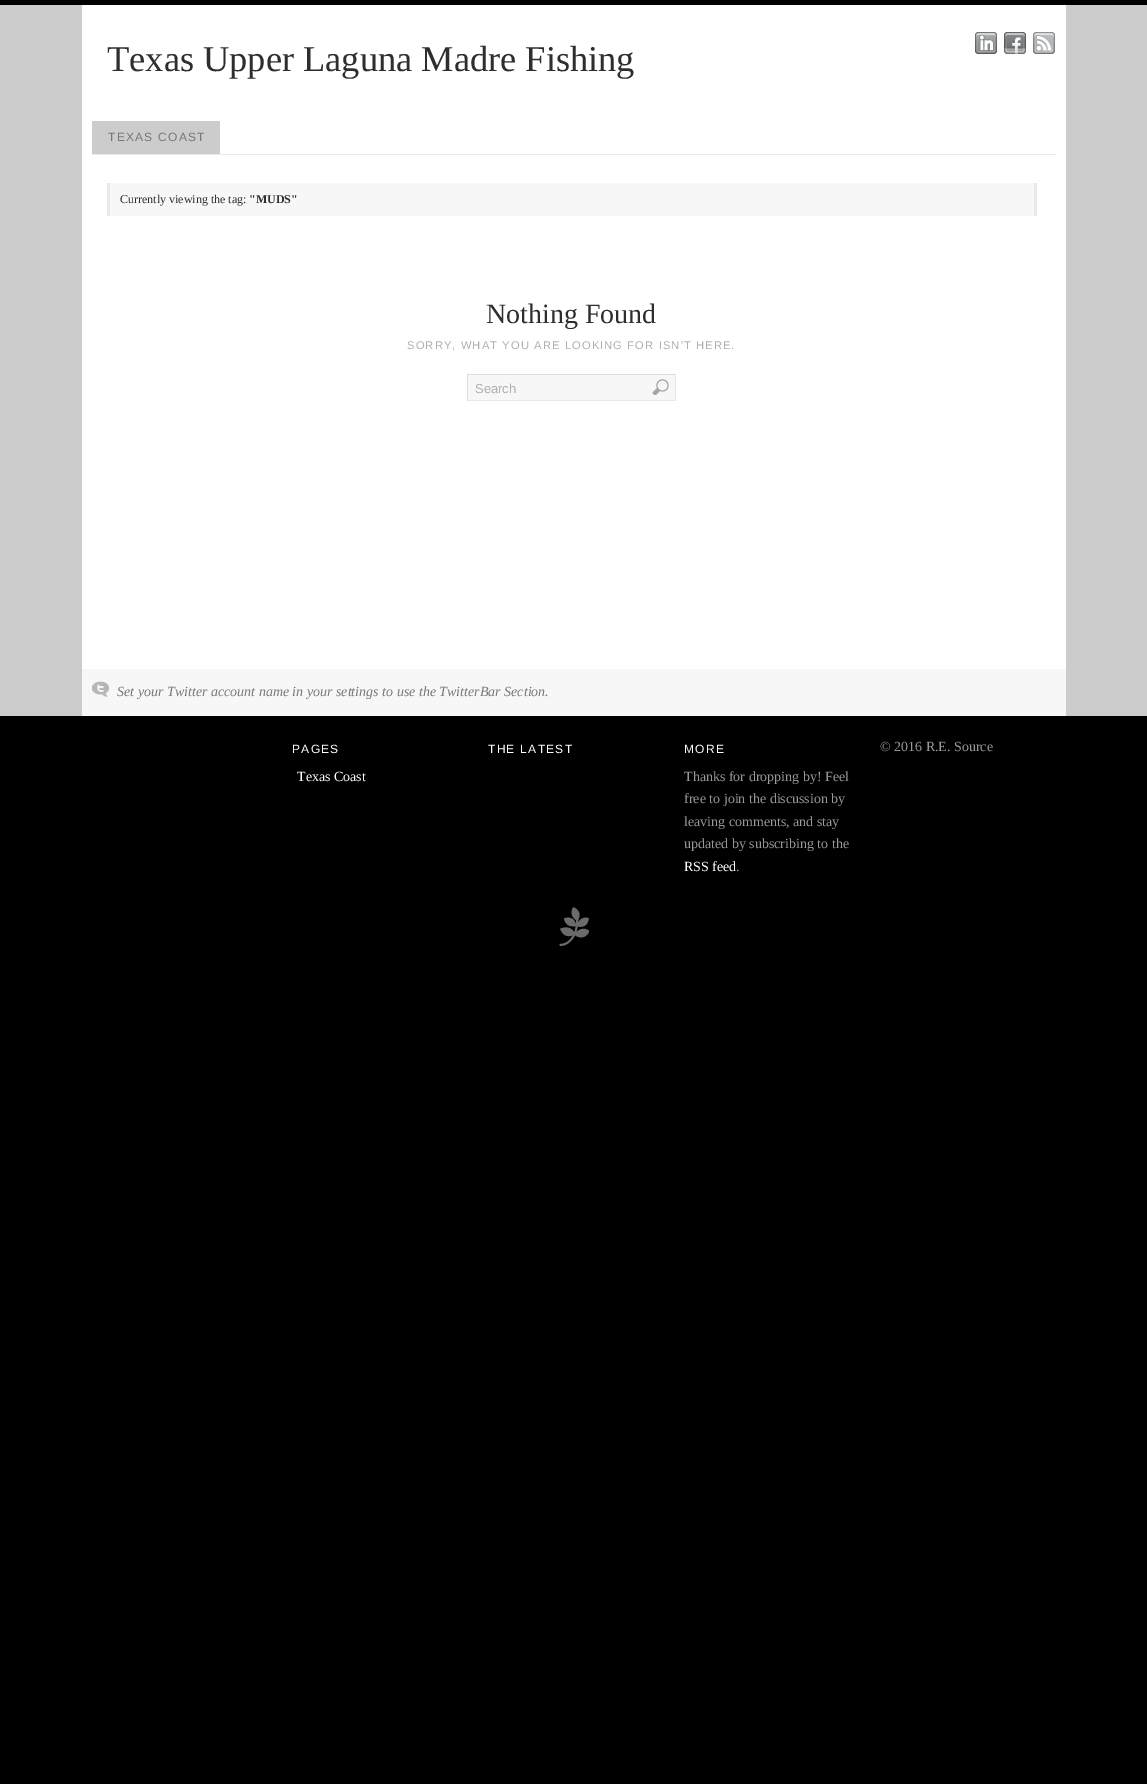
%!PS-Adobe-3.0
%%BoundingBox: 0 0 1147 1784
%%LanguageLevel: 3
%%Pages: 1
%%EndComments
%%BeginProlog
/setink { 3 { 255 div 3 1 roll } repeat setrgbcolor } def
/usefont { [ exch dup neg 0 0 3 -1 roll 0 0 ] selectfont } def
/drawtext { setink usefont moveto show } def
/fillbox { setink rectfill } def
/drawimage { 5 dict begin { /h /w /y /x /name } { exch def } forall
  gsave x y translate w h scale
  w h 8 [w 0 0 h 0 0] name (r) file false 3 colorimage grestore end } def
%%EndProlog
%%BeginSetup
<< /PageSize [1147 1784] >> setpagedevice
%%EndSetup
%%Page: 1 1
0 1784 translate 1 -1 scale
4 setmiterlimit
0 0 1147 1784 0 0 0 fillbox
0 5 1147 711 204 204 204 fillbox
82 5 984 664 255 255 255 fillbox
(Texas Upper Laguna Madre Fishing) 107 71 /LiberationSerif-Regular 36.4 46 46 46 drawtext
(assets/img1.rgb) 975 32 22 22 drawimage
(assets/img2.rgb) 1004 32 22 22 drawimage
(assets/img3.rgb) 1033 32 22 22 drawimage
92 154 964 1 233 233 233 fillbox
92 121 128 33 204 204 204 fillbox
/LiberationSans-Regular 12 usefont
119 119 119 setink
108 141 moveto 1.25 0 (TEXAS COAST) ashow
110 183 924 33 247 247 247 fillbox
1034 183 3 33 233 233 233 fillbox
107 183 3 33 233 233 233 fillbox
(Currently viewing the tag:) 120 203 /LiberationSerif-Regular 12 46 46 46 drawtext
("MUDS") 249 203 /LiberationSerif-Bold 12 46 46 46 drawtext
(Nothing Found) 486 323 /LiberationSerif-Regular 28 46 46 46 drawtext
/LiberationSans-Regular 11.2 usefont
175 175 175 setink
407 349 moveto 1.1 0 (SORRY, WHAT YOU ARE LOOKING FOR ISN'T HERE.) ashow
468 375 207 25 247 247 247 fillbox
467 374 209 1 221 221 221 fillbox
675 374 1 27 233 233 233 fillbox
467 400 209 1 233 233 233 fillbox
467 374 1 27 221 221 221 fillbox
(Search) 475 393 /LiberationSans-Regular 13 175 175 175 drawtext
(assets/img4.rgb) 652 379 17 16 drawimage
82 669 984 47 247 247 247 fillbox
(assets/img5.rgb) 92 681 17 16 drawimage
(Set your Twitter account name in your settings to use the TwitterBar Section.) 117 696 /LiberationSerif-Italic 14 119 119 119 drawtext
/LiberationSans-Regular 12 usefont
255 255 255 setink
292 753 moveto 1.25 0 (PAGES) ashow
(Texas Coast) 297 781 /LiberationSerif-Regular 14 255 255 255 drawtext
/LiberationSans-Regular 12 usefont
488 753 moveto 1.25 0 (THE LATEST) ashow
684 753 moveto 1.25 0 (MORE) ashow
(Thanks for dropping by! Feel) 684 781 /LiberationSerif-Regular 14 153 153 153 drawtext
(free to join the discussion by) 684 803 /LiberationSerif-Regular 14 153 153 153 drawtext
(leaving comments, and stay) 684 826 /LiberationSerif-Regular 14 153 153 153 drawtext
(updated by subscribing to the) 684 848 /LiberationSerif-Regular 14 153 153 153 drawtext
(RSS feed) 684 871 /LiberationSerif-Regular 14 255 255 255 drawtext
(.) 736 871 /LiberationSerif-Regular 14 153 153 153 drawtext
(© 2016 R.E. Source) 880 751 /LiberationSerif-Regular 14 153 153 153 drawtext
(assets/img6.rgb) 559 907 30 39 drawimage
showpage
%%EOF
